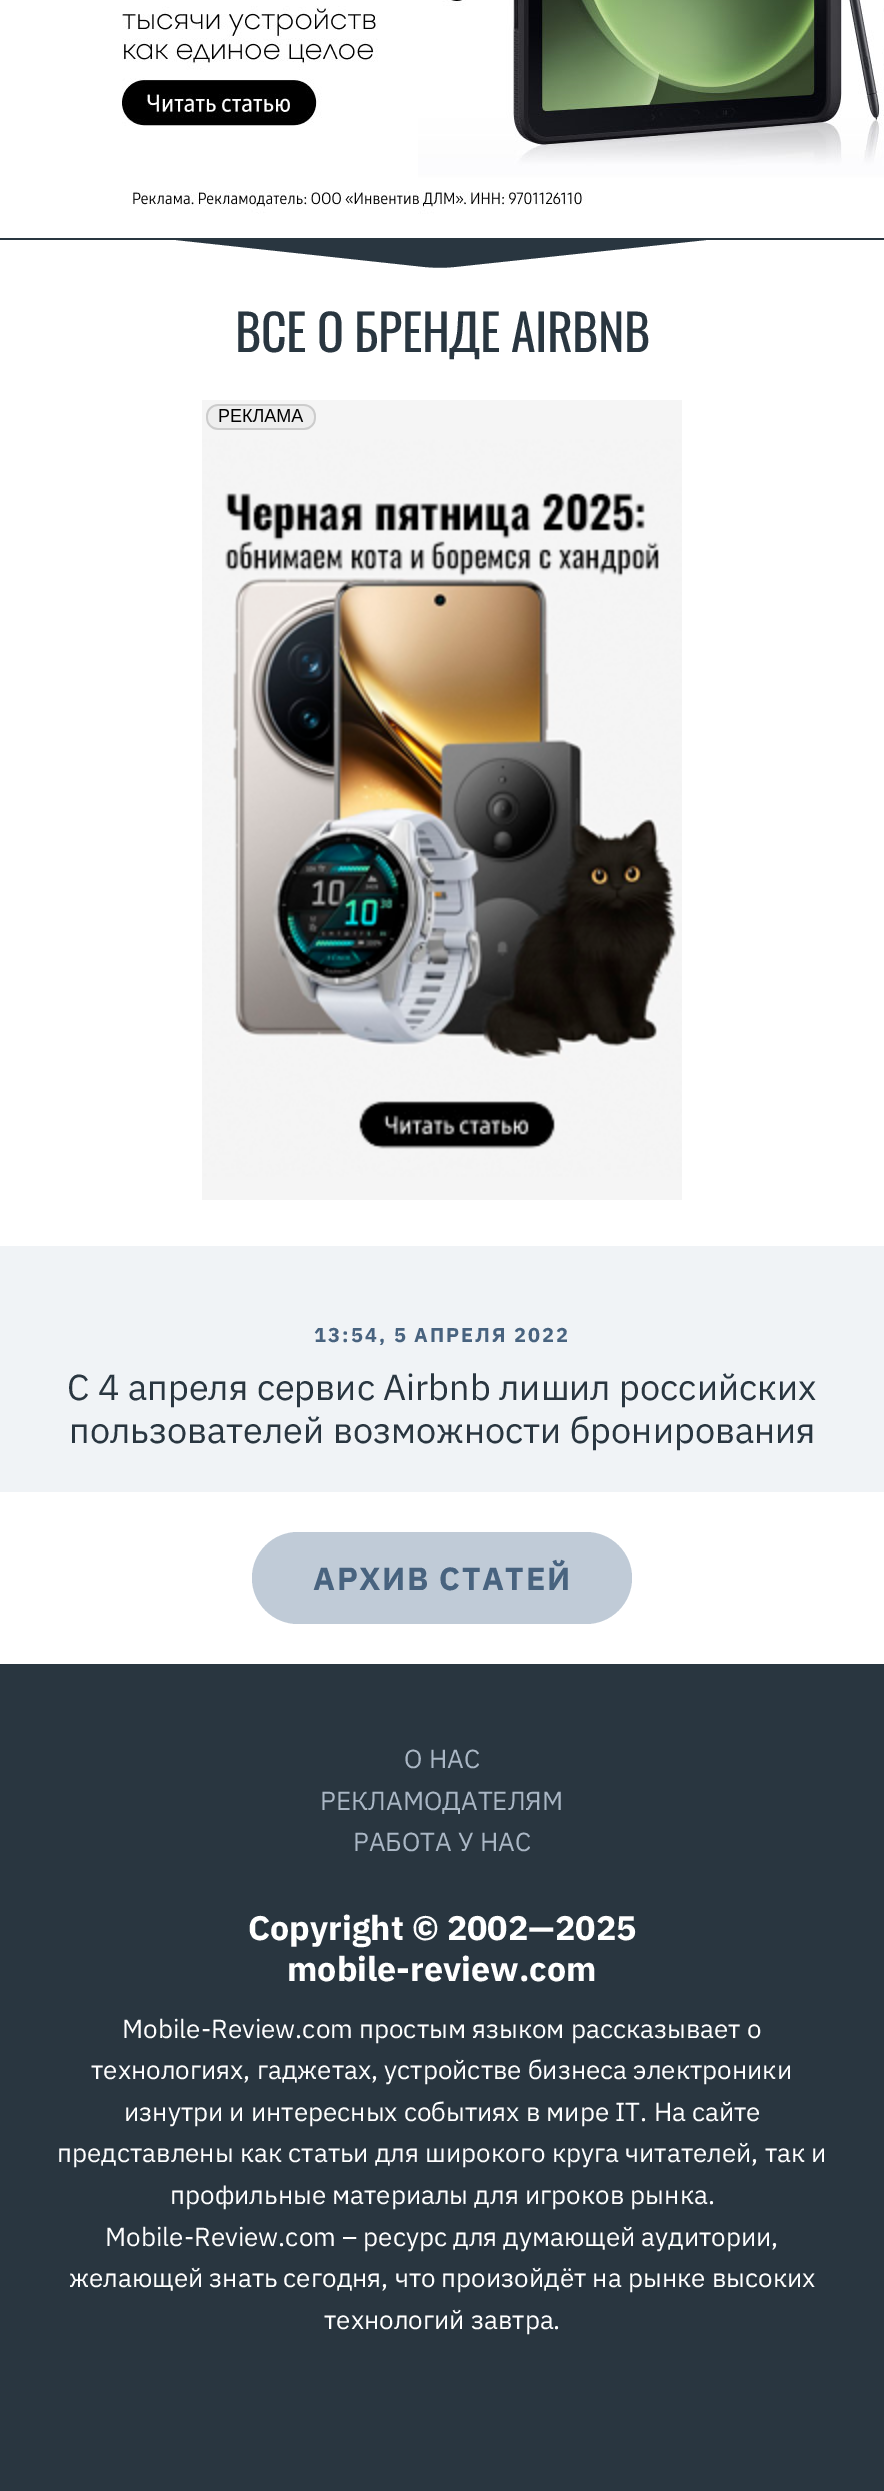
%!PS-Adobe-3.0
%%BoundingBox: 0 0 884 2491
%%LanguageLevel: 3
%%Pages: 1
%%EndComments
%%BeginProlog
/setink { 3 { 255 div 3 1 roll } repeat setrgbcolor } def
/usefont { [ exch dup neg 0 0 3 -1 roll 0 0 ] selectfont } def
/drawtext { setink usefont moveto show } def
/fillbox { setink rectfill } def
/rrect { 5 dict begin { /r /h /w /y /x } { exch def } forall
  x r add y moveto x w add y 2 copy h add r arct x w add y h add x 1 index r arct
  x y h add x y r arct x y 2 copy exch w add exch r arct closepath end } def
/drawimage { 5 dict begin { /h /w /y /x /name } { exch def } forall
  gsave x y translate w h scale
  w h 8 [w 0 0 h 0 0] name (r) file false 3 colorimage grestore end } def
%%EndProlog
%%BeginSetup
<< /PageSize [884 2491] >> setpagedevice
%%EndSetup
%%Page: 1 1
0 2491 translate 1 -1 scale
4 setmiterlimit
0 0 884 2491 255 255 255 fillbox
(assets/img1.rgb) 122 0 762 214 drawimage
0 238 884 2 41 54 64 fillbox
706 240 moveto 454 267 lineto 441 268 439 268 425 267 curveto 176 240 lineto fill
/Oswald-Regular 50 usefont
235 352 moveto -0.5 0 (ВСЕ О БРЕНДЕ AIRBNB) ashow
(assets/img2.rgb) 202 400 480 800 drawimage
0 1246 884 246 240 243 246 fillbox
/IBMPlexSans-Bold 20 usefont
72 99 127 setink
314 1342 moveto 2 0 (13:54, 5 АПРЕЛЯ 2022) ashow
(С 4 апреля сервис Airbnb лишил российских) 67 1400 /IBMPlexSans-Regular 36 41 54 64 drawtext
(пользователей возможности бронирования) 69 1443 /IBMPlexSans-Regular 36 41 54 64 drawtext
192 203 215 setink
252 1532 380 92 46 rrect fill
/IBMPlexSans-Bold 32 usefont
72 99 127 setink
313 1590 moveto 1.6 0 (АРХИВ СТАТЕЙ) ashow
0 1664 884 827 41 54 64 fillbox
(О НАС) 404 1768 /IBMPlexSans-Regular 26 170 183 197 drawtext
(РЕКЛАМОДАТЕЛЯМ) 320 1810 /IBMPlexSans-Regular 26 170 183 197 drawtext
(РАБОТА У НАС) 353 1851 /IBMPlexSans-Regular 26 170 183 197 drawtext
(Copyright © 2002—2025) 248 1940 /IBMPlexSans-Bold 34 255 255 255 drawtext
(mobile-review.com) 287 1981 /IBMPlexSans-Bold 34 255 255 255 drawtext
(Mobile-Review.com простым языком рассказывает о) 122 2038 /IBMPlexSans-Regular 26 255 255 255 drawtext
(технологиях, гаджетах, устройстве бизнеса электроники) 91 2079 /IBMPlexSans-Regular 26 255 255 255 drawtext
(изнутри и интересных событиях в мире IT. На сайте) 124 2121 /IBMPlexSans-Regular 26 255 255 255 drawtext
(представлены как статьи для широкого круга читателей, так и) 57 2162 /IBMPlexSans-Regular 26 255 255 255 drawtext
(профильные материалы для игроков рынка.) 170 2204 /IBMPlexSans-Regular 26 255 255 255 drawtext
(Mobile-Review.com – ресурс для думающей аудитории,) 105 2246 /IBMPlexSans-Regular 26 255 255 255 drawtext
(желающей знать сегодня, что произойдёт на рынке высоких) 69 2287 /IBMPlexSans-Regular 26 255 255 255 drawtext
(технологий завтра.) 324 2329 /IBMPlexSans-Regular 26 255 255 255 drawtext
showpage
%%EOF
